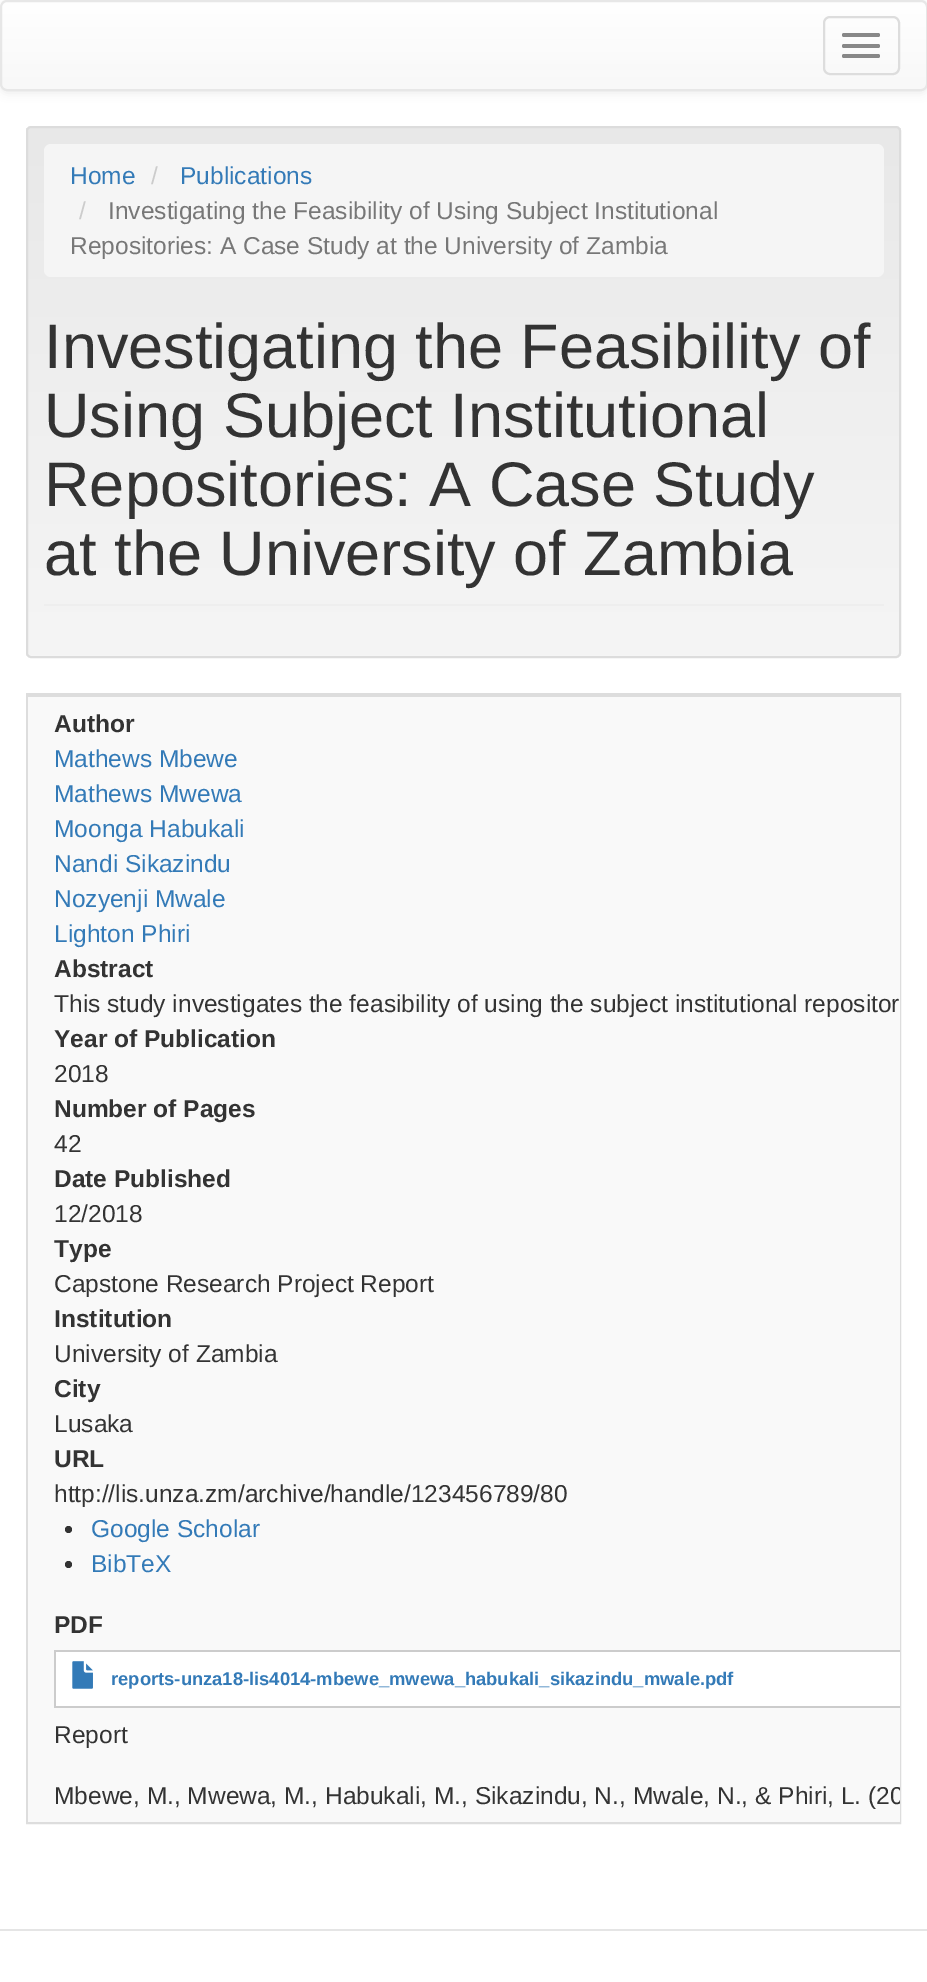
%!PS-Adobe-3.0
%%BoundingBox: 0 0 927 1982
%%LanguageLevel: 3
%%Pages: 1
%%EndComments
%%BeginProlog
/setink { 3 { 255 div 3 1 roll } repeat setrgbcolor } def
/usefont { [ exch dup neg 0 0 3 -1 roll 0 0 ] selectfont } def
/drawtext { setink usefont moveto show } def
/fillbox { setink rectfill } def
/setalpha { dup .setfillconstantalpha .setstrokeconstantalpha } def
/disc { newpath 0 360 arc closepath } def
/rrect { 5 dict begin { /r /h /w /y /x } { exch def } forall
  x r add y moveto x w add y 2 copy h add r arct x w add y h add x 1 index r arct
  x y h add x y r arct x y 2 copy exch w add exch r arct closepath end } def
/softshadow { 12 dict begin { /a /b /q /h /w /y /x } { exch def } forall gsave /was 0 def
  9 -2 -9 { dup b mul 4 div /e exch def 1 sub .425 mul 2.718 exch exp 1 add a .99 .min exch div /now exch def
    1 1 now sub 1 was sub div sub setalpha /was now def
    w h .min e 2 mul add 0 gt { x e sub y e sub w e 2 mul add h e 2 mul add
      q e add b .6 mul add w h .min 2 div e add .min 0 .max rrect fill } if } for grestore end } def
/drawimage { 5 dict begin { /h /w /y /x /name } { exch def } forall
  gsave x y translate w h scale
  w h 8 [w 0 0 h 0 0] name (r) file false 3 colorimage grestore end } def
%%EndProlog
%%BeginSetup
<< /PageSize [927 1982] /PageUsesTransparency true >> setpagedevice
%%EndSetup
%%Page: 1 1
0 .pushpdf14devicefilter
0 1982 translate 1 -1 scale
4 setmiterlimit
0 0 927 1982 255 255 255 fillbox
0 0 0 setink
0 2 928 91 7 4.5 0.07 softshadow
gsave
0 0 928 91 7 rrect clip newpath
gsave 0 2 moveto 927 2 lineto 927 89 lineto 0 89 lineto closepath clip newpath
<< /ShadingType 2 /ColorSpace /DeviceRGB /Coords [464 1.7 464 89] /Extend [true true] /Function << /FunctionType 2 /Domain [0 1] /C0 [1 1 1] /C1 [0.973 0.973 0.973] /N 1 >> >> shfill grestore
grestore
231 231 231 setink
2 setlinewidth
1 1 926 89 6 rrect stroke
221 221 221 setink
824 17 75 57 6 rrect stroke
136 136 136 setink
842 33 38 4 2 rrect fill
842 44 38 4 2 rrect fill
842 54 38 4 2 rrect fill
gsave
26 126 875 532 5 rrect clip newpath
gsave 26 128 moveto 901 128 lineto 901 656 lineto 26 656 lineto closepath clip newpath
<< /ShadingType 2 /ColorSpace /DeviceRGB /Coords [464 128 464 656] /Extend [true true] /Function << /FunctionType 2 /Domain [0 1] /C0 [0.91 0.91 0.91] /C1 [0.961 0.961 0.961] /N 1 >> >> shfill grestore
grestore
220 220 220 setink
27 127 873 530 4 rrect stroke
245 245 245 setink
44 144 840 133 7 rrect fill
(Home) 70 184 /LiberationSans-Regular 24.5 51 122 183 drawtext
(/) 151 184 /LiberationSans-Regular 24.5 204 204 204 drawtext
(Publications) 180 184 /LiberationSans-Regular 24.5 51 122 183 drawtext
(/) 79 219 /LiberationSans-Regular 24.5 204 204 204 drawtext
(Investigating the Feasibility of Using Subject Institutional) 108 219 /LiberationSans-Regular 24.5 119 119 119 drawtext
(Repositories: A Case Study at the University of Zambia) 70 254 /LiberationSans-Regular 24.5 119 119 119 drawtext
44 604 840 2 238 238 238 fillbox
(Investigating the Feasibility of) 44 368 /LiberationSans-Regular 63 51 51 51 drawtext
(Using Subject Institutional) 44 437 /LiberationSans-Regular 63 51 51 51 drawtext
(Repositories: A Case Study) 44 506 /LiberationSans-Regular 63 51 51 51 drawtext
(at the University of Zambia) 44 575 /LiberationSans-Regular 63 51 51 51 drawtext
221 221 221 setink
27 694 873 1129 rectstroke
28 697 872 1125 249 249 249 fillbox
28 695 872 2 221 221 221 fillbox
(Author) 54 732 /LiberationSans-Bold 24.5 51 51 51 drawtext
(Mathews Mbewe) 54 767 /LiberationSans-Regular 24.5 51 122 183 drawtext
(Mathews Mwewa) 54 802 /LiberationSans-Regular 24.5 51 122 183 drawtext
(Moonga Habukali) 54 837 /LiberationSans-Regular 24.5 51 122 183 drawtext
(Nandi Sikazindu) 54 872 /LiberationSans-Regular 24.5 51 122 183 drawtext
(Nozyenji Mwale) 54 907 /LiberationSans-Regular 24.5 51 122 183 drawtext
(Lighton Phiri) 54 942 /LiberationSans-Regular 24.5 51 122 183 drawtext
(Abstract) 54 977 /LiberationSans-Bold 24.5 51 51 51 drawtext
(This study investigates the feasibility of using the subject institutional repositor) 54 1012 /LiberationSans-Regular 24.5 51 51 51 drawtext
(Year of Publication) 54 1047 /LiberationSans-Bold 24.5 51 51 51 drawtext
(2018) 54 1082 /LiberationSans-Regular 24.5 51 51 51 drawtext
(Number of Pages) 54 1117 /LiberationSans-Bold 24.5 51 51 51 drawtext
(42) 54 1152 /LiberationSans-Regular 24.5 51 51 51 drawtext
(Date Published) 54 1187 /LiberationSans-Bold 24.5 51 51 51 drawtext
(12/2018) 54 1222 /LiberationSans-Regular 24.5 51 51 51 drawtext
(Type) 54 1257 /LiberationSans-Bold 24.5 51 51 51 drawtext
(Capstone Research Project Report) 54 1292 /LiberationSans-Regular 24.5 51 51 51 drawtext
(Institution) 54 1327 /LiberationSans-Bold 24.5 51 51 51 drawtext
(University of Zambia) 54 1362 /LiberationSans-Regular 24.5 51 51 51 drawtext
(City) 54 1397 /LiberationSans-Bold 24.5 51 51 51 drawtext
(Lusaka) 54 1432 /LiberationSans-Regular 24.5 51 51 51 drawtext
(URL) 54 1467 /LiberationSans-Bold 24.5 51 51 51 drawtext
(http://lis.unza.zm/archive/handle/123456789/80) 54 1502 /LiberationSans-Regular 24.5 51 51 51 drawtext
68.5 1529.5 3.5 disc fill
(Google Scholar) 91 1537 /LiberationSans-Regular 24.5 51 122 183 drawtext
51 51 51 setink
68.5 1564.5 3.5 disc fill
(BibTeX) 91 1572 /LiberationSans-Regular 24.5 51 122 183 drawtext
(PDF) 54 1633 /LiberationSans-Bold 24.5 51 51 51 drawtext
56 1652 844 54 255 255 255 fillbox
54 1650 846 2 204 204 204 fillbox
54 1706 846 2 204 204 204 fillbox
54 1650 2 58 204 204 204 fillbox
(assets/img1.rgb) 72 1661 21 28 drawimage
(reports-unza18-lis4014-mbewe_mwewa_habukali_sikazindu_mwale.pdf) 111 1685 /LiberationSans-Bold 18.4 51 122 183 drawtext
(Report) 54 1743 /LiberationSans-Regular 24.5 51 51 51 drawtext
(Mbewe, M., Mwewa, M., Habukali, M., Sikazindu, N., Mwale, N., & Phiri, L.) 54 1804 /LiberationSans-Regular 24.5 51 51 51 drawtext
gsave
28 695 872 1127 rectclip
(\(20) 868 1804 /LiberationSans-Regular 24.5 51 51 51 drawtext
grestore
0 1929 927 2 229 229 229 fillbox
.poppdf14devicefilter showpage
%%EOF
